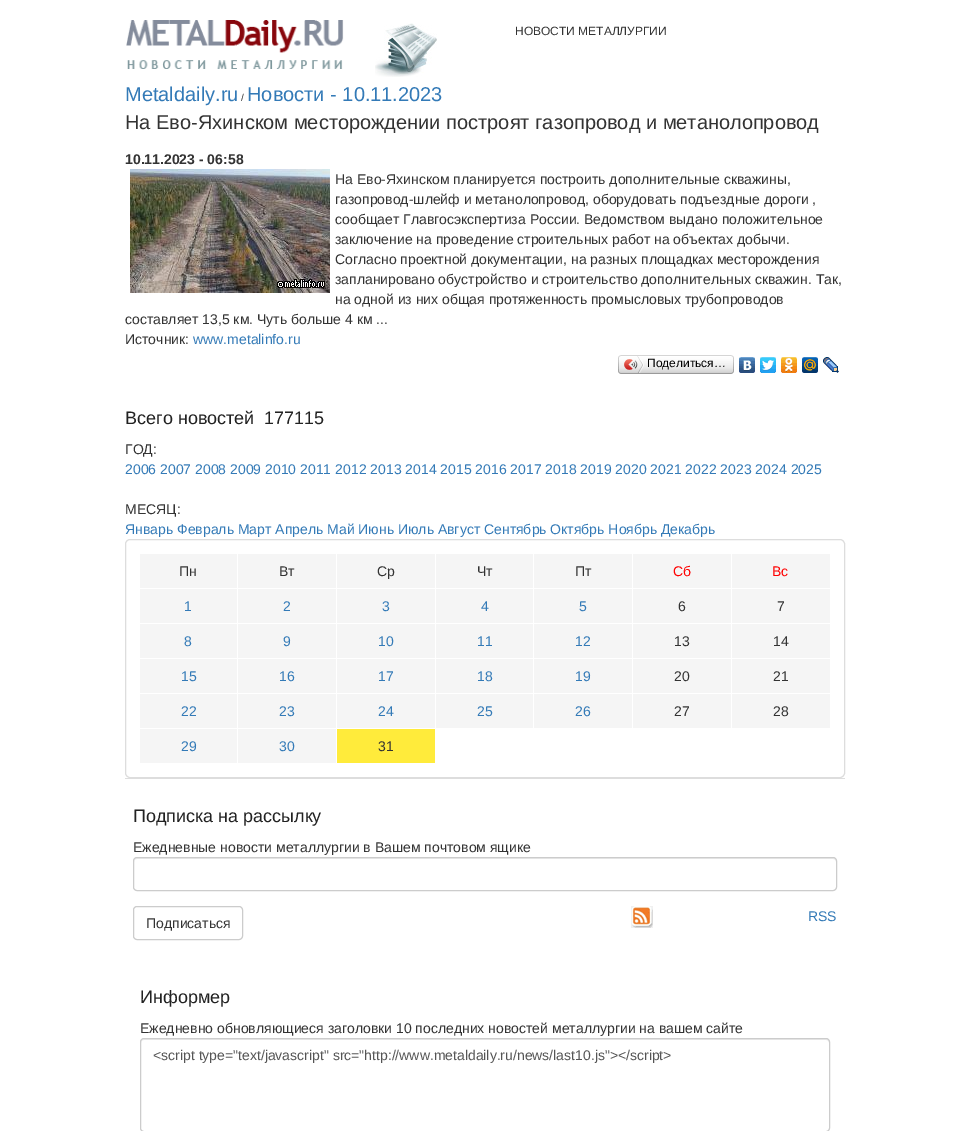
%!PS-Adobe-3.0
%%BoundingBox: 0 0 969 1131
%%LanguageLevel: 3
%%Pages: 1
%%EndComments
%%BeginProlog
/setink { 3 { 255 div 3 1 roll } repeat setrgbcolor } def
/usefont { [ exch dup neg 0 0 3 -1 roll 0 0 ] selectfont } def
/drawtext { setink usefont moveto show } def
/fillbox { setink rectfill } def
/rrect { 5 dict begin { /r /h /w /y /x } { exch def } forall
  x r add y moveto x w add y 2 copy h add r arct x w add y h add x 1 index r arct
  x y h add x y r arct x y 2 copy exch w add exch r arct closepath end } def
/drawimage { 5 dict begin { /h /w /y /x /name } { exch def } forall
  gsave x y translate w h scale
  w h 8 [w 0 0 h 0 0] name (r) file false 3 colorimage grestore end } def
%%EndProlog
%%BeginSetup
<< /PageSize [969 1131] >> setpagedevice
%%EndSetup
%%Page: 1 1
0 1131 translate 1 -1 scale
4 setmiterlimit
0 0 969 1131 255 255 255 fillbox
(assets/img1.rgb) 126 20 218 49 drawimage
(assets/img2.rgb) 375 23 62 54 drawimage
(НОВОСТИ МЕТАЛЛУРГИИ) 515 35 /LiberationSans-Regular 12 51 51 51 drawtext
(Metaldaily.ru) 125 101 /LiberationSans-Regular 20 51 122 183 drawtext
(/) 241 101 /LiberationSans-Regular 10 51 51 51 drawtext
(Новости - 10.11.2023) 247 101 /LiberationSans-Regular 20 51 122 183 drawtext
(На Ево-Яхинском месторождении построят газопровод и метанолопровод) 125 129 /LiberationSans-Regular 20 51 51 51 drawtext
(10.11.2023 - 06:58) 125 164 /LiberationSans-Bold 14 51 51 51 drawtext
(assets/img3.rgb) 130 169 200 124 drawimage
(На Ево-Яхинском планируется построить дополнительные скважины,) 335 184 /LiberationSans-Regular 14 51 51 51 drawtext
(газопровод-шлейф и метанолопровод, оборудовать подъездные дороги ,) 335 204 /LiberationSans-Regular 14 51 51 51 drawtext
(сообщает Главгосэкспертиза России. Ведомством выдано положительное) 335 224 /LiberationSans-Regular 14 51 51 51 drawtext
(заключение на проведение строительных работ на объектах добычи.) 335 244 /LiberationSans-Regular 14 51 51 51 drawtext
(Согласно проектной документации, на разных площадках месторождения) 335 264 /LiberationSans-Regular 14 51 51 51 drawtext
(запланировано обустройство и строительство дополнительных скважин. Так,) 335 284 /LiberationSans-Regular 14 51 51 51 drawtext
(на одной из них общая протяженность промысловых трубопроводов) 335 304 /LiberationSans-Regular 14 51 51 51 drawtext
(составляет 13,5 км. Чуть больше 4 км ...) 125 324 /LiberationSans-Regular 14 51 51 51 drawtext
(Источник:) 125 344 /LiberationSans-Regular 14 51 51 51 drawtext
(www.metalinfo.ru) 193 344 /LiberationSans-Regular 14 51 122 183 drawtext
(assets/img4.rgb) 621 355 110 19 drawimage
(assets/img5.rgb) 618 355 3 19 drawimage
(assets/img6.rgb) 624 356 20 17 drawimage
(Поделиться…) 647 367 /LiberationSans-Regular 12 0 0 0 drawtext
(assets/img7.rgb) 731 355 3 19 drawimage
(assets/img8.rgb) 739 357 16 16 drawimage
(assets/img9.rgb) 760 357 16 16 drawimage
(assets/img10.rgb) 781 357 16 16 drawimage
(assets/img11.rgb) 802 357 16 16 drawimage
(assets/img12.rgb) 823 357 16 16 drawimage
(Всего новостей) 125 424 /LiberationSans-Regular 18 34 34 34 drawtext
(177115) 264 424 /LiberationSans-Regular 18 34 34 34 drawtext
(ГОД:) 125 454 /LiberationSans-Regular 14 51 51 51 drawtext
(2006 2007 2008 2009 2010 2011 2012 2013 2014 2015 2016 2017 2018 2019 2020 2021 2022 2023 2024 2025) 125 474 /LiberationSans-Regular 14 51 122 183 drawtext
(МЕСЯЦ:) 125 514 /LiberationSans-Regular 14 51 51 51 drawtext
(Январь Февраль Март Апрель Май Июнь Июль Август Сентябрь Октябрь Ноябрь Декабрь) 125 534 /LiberationSans-Regular 14 51 122 183 drawtext
221 221 221 setink
125.5 539.5 719 238 4.5 rrect stroke
140 554 97 34 245 245 245 fillbox
(Пн) 179 576 /LiberationSans-Regular 14 51 51 51 drawtext
238 554 98 34 245 245 245 fillbox
(Вт) 279 576 /LiberationSans-Regular 14 51 51 51 drawtext
337 554 98 34 245 245 245 fillbox
(Ср) 377 576 /LiberationSans-Regular 14 51 51 51 drawtext
436 554 97 34 245 245 245 fillbox
(Чт) 477 576 /LiberationSans-Regular 14 51 51 51 drawtext
534 554 98 34 245 245 245 fillbox
(Пт) 575 576 /LiberationSans-Regular 14 51 51 51 drawtext
633 554 98 34 245 245 245 fillbox
(Сб) 673 576 /LiberationSans-Regular 14 255 0 0 drawtext
732 554 98 34 245 245 245 fillbox
(Вс) 772 576 /LiberationSans-Regular 14 255 0 0 drawtext
140 589 97 34 245 245 245 fillbox
(1) 184 611 /LiberationSans-Regular 14 51 122 183 drawtext
238 589 98 34 245 245 245 fillbox
(2) 283 611 /LiberationSans-Regular 14 51 122 183 drawtext
337 589 98 34 245 245 245 fillbox
(3) 382 611 /LiberationSans-Regular 14 51 122 183 drawtext
436 589 97 34 245 245 245 fillbox
(4) 481 611 /LiberationSans-Regular 14 51 122 183 drawtext
534 589 98 34 245 245 245 fillbox
(5) 579 611 /LiberationSans-Regular 14 51 122 183 drawtext
633 589 98 34 245 245 245 fillbox
(6) 678 611 /LiberationSans-Regular 14 51 51 51 drawtext
732 589 98 34 245 245 245 fillbox
(7) 777 611 /LiberationSans-Regular 14 51 51 51 drawtext
140 624 97 34 245 245 245 fillbox
(8) 184 646 /LiberationSans-Regular 14 51 122 183 drawtext
238 624 98 34 245 245 245 fillbox
(9) 283 646 /LiberationSans-Regular 14 51 122 183 drawtext
337 624 98 34 245 245 245 fillbox
(10) 378 646 /LiberationSans-Regular 14 51 122 183 drawtext
436 624 97 34 245 245 245 fillbox
(11) 477 646 /LiberationSans-Regular 14 51 122 183 drawtext
534 624 98 34 245 245 245 fillbox
(12) 575 646 /LiberationSans-Regular 14 51 122 183 drawtext
633 624 98 34 245 245 245 fillbox
(13) 674 646 /LiberationSans-Regular 14 51 51 51 drawtext
732 624 98 34 245 245 245 fillbox
(14) 773 646 /LiberationSans-Regular 14 51 51 51 drawtext
140 659 97 34 245 245 245 fillbox
(15) 181 681 /LiberationSans-Regular 14 51 122 183 drawtext
238 659 98 34 245 245 245 fillbox
(16) 279 681 /LiberationSans-Regular 14 51 122 183 drawtext
337 659 98 34 245 245 245 fillbox
(17) 378 681 /LiberationSans-Regular 14 51 122 183 drawtext
436 659 97 34 245 245 245 fillbox
(18) 477 681 /LiberationSans-Regular 14 51 122 183 drawtext
534 659 98 34 245 245 245 fillbox
(19) 575 681 /LiberationSans-Regular 14 51 122 183 drawtext
633 659 98 34 245 245 245 fillbox
(20) 674 681 /LiberationSans-Regular 14 51 51 51 drawtext
732 659 98 34 245 245 245 fillbox
(21) 773 681 /LiberationSans-Regular 14 51 51 51 drawtext
140 694 97 34 245 245 245 fillbox
(22) 181 716 /LiberationSans-Regular 14 51 122 183 drawtext
238 694 98 34 245 245 245 fillbox
(23) 279 716 /LiberationSans-Regular 14 51 122 183 drawtext
337 694 98 34 245 245 245 fillbox
(24) 378 716 /LiberationSans-Regular 14 51 122 183 drawtext
436 694 97 34 245 245 245 fillbox
(25) 477 716 /LiberationSans-Regular 14 51 122 183 drawtext
534 694 98 34 245 245 245 fillbox
(26) 575 716 /LiberationSans-Regular 14 51 122 183 drawtext
633 694 98 34 245 245 245 fillbox
(27) 674 716 /LiberationSans-Regular 14 51 51 51 drawtext
732 694 98 34 245 245 245 fillbox
(28) 773 716 /LiberationSans-Regular 14 51 51 51 drawtext
140 729 97 34 245 245 245 fillbox
(29) 181 751 /LiberationSans-Regular 14 51 122 183 drawtext
238 729 98 34 245 245 245 fillbox
(30) 279 751 /LiberationSans-Regular 14 51 122 183 drawtext
337 729 98 34 255 235 59 fillbox
(31) 378 751 /LiberationSans-Regular 14 51 51 51 drawtext
125 778 720 1 221 221 221 fillbox
(Подписка на рассылку) 133 822 /LiberationSans-Regular 18 34 34 34 drawtext
(Ежедневные новости металлургии в Вашем почтовом ящике) 133 852 /LiberationSans-Regular 14 51 51 51 drawtext
236 236 236 setink
137 859 moveto 833 859 lineto 835 859 836 860 836 862 curveto 836 860 835 858 833 858 curveto 137 858 lineto 135 858 134 860 134 862 curveto 134 860 135 859 137 859 curveto closepath fill
204 204 204 setink
133.5 857.5 703 33 3.5 rrect stroke
(assets/img13.rgb) 631 906 22 22 drawimage
(RSS) 808 921 /LiberationSans-Regular 14 51 122 183 drawtext
204 204 204 setink
133.5 906.5 109 33 3.5 rrect stroke
(Подписаться) 146 928 /LiberationSans-Regular 14 51 51 51 drawtext
(Информер) 140 1003 /LiberationSans-Regular 18 34 34 34 drawtext
(Ежедневно обновляющиеся заголовки 10 последних новостей металлургии на вашем сайте) 140 1033 /LiberationSans-Regular 14 51 51 51 drawtext
236 236 236 setink
144 1040 moveto 826 1040 lineto 828 1040 829 1041 829 1043 curveto 829 1042 lineto 829 1040 828 1039 826 1039 curveto 144 1039 lineto 142 1039 141 1040 141 1042 curveto 141 1043 lineto 141 1041 142 1040 144 1040 curveto closepath fill
204 204 204 setink
140.5 1038.5 689 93 3.5 rrect stroke
(<script type="text/javascript" src="http://www.metaldaily.ru/news/last10.js"></script>) 153 1060 /LiberationSans-Regular 14 85 85 85 drawtext
showpage
%%EOF
